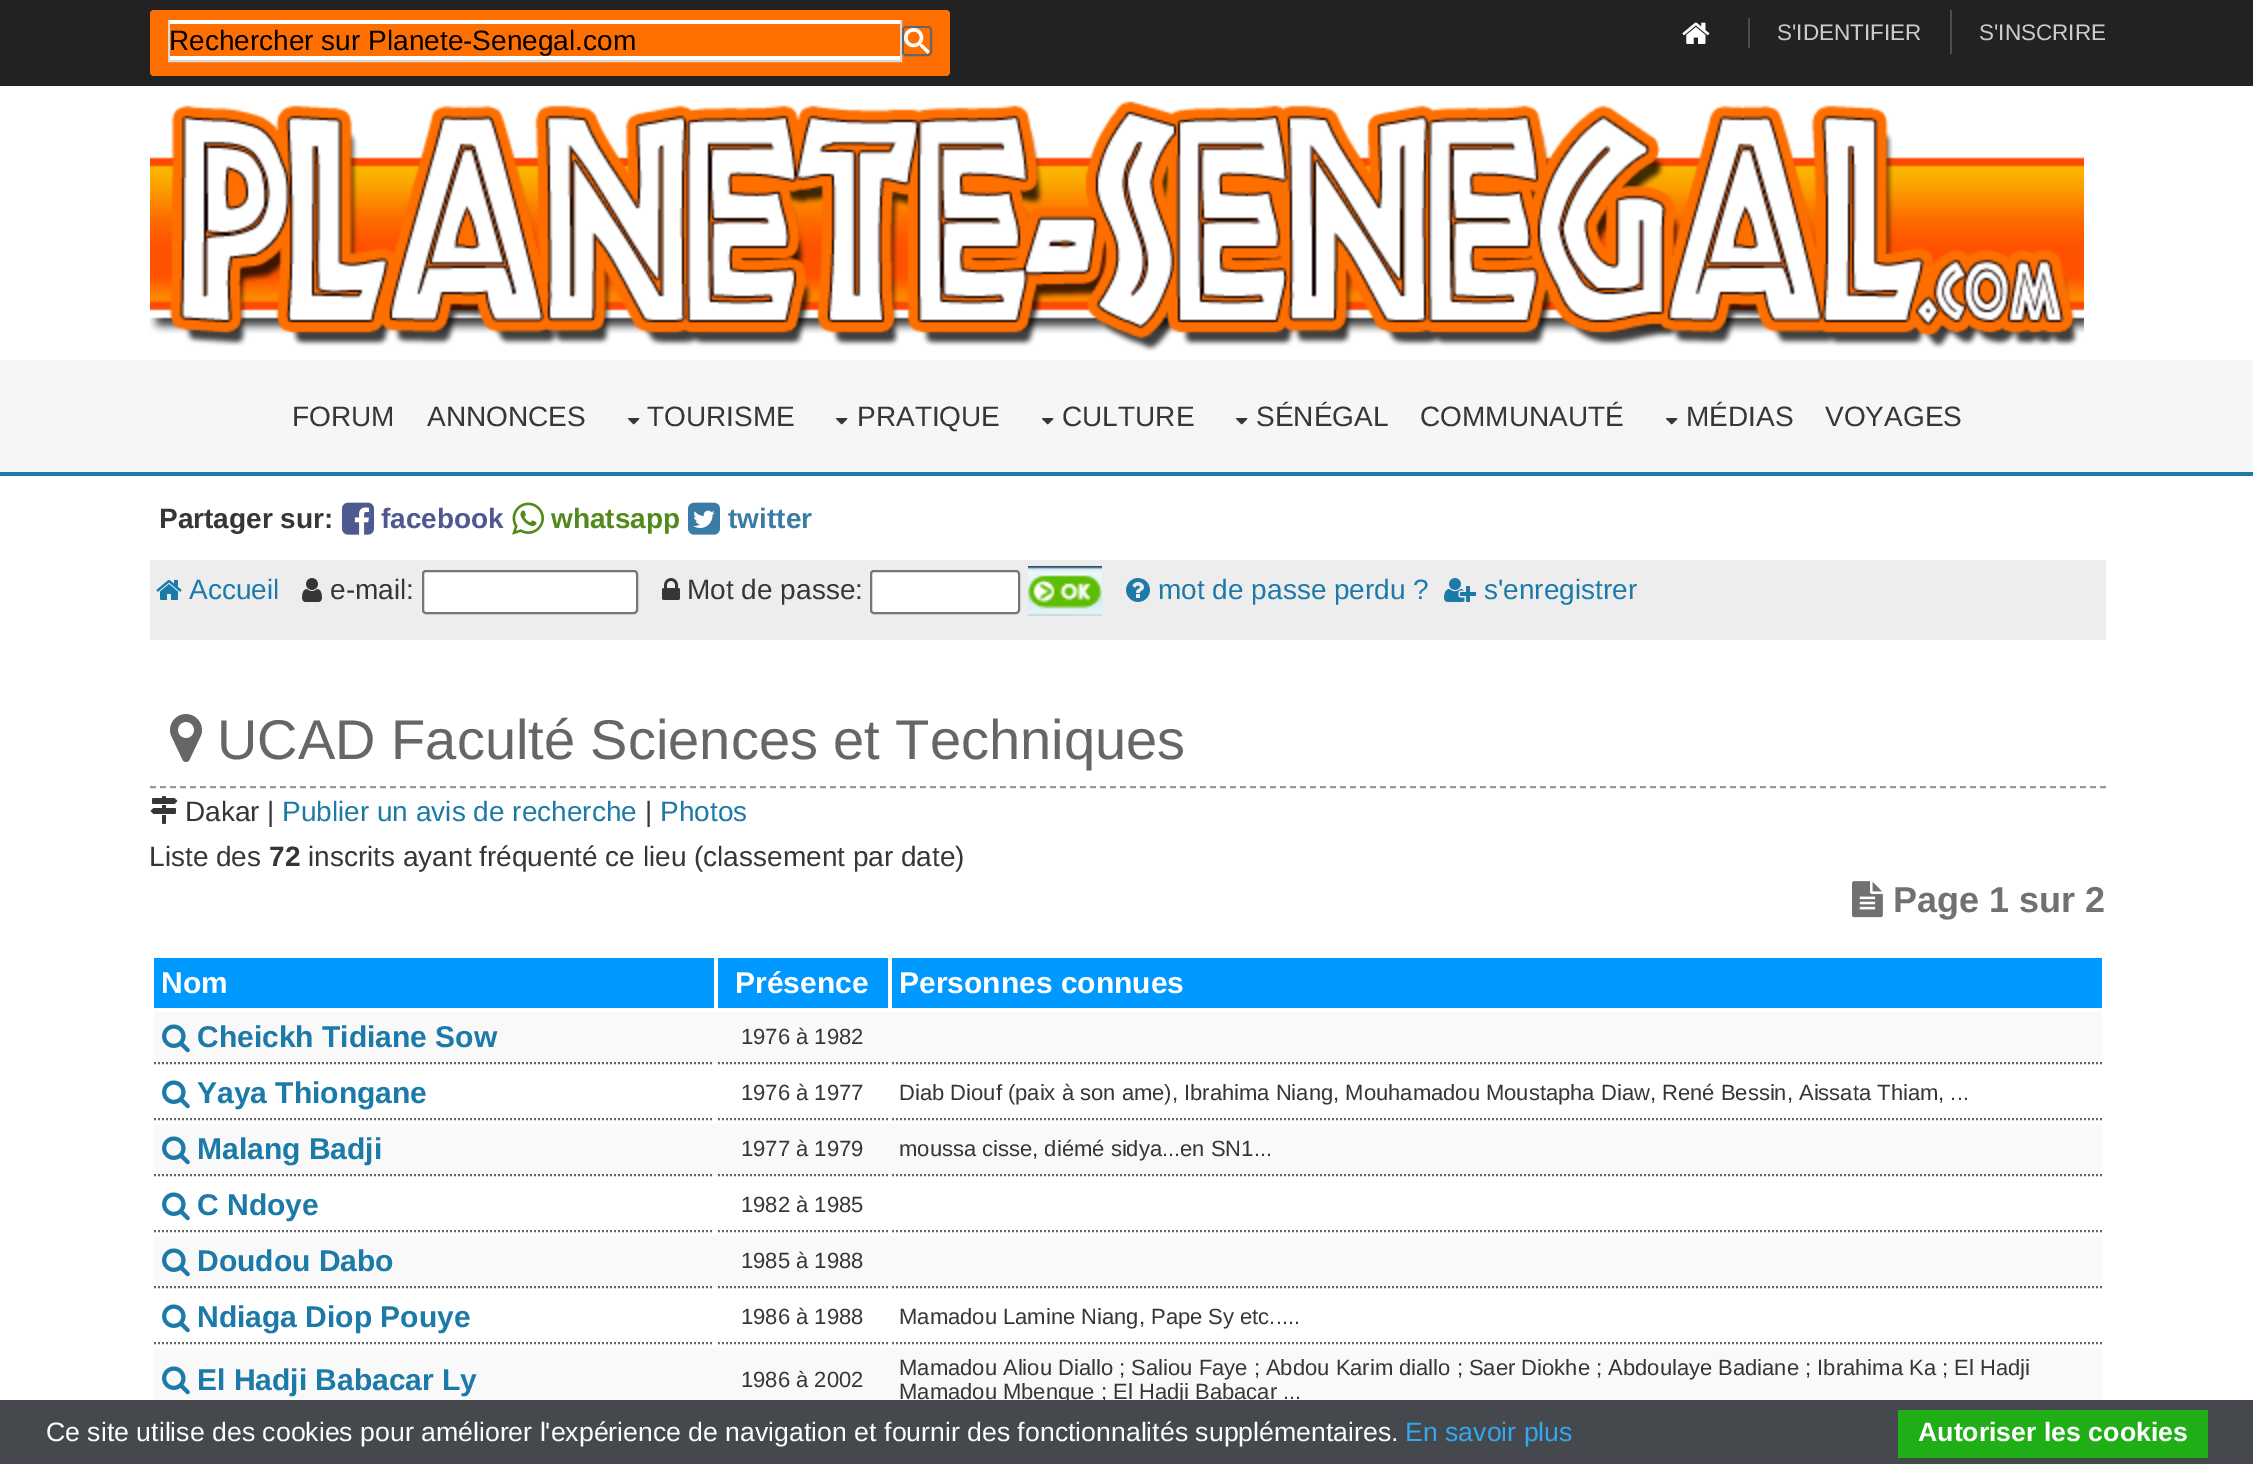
%!PS-Adobe-3.0
%%BoundingBox: 0 0 2253 1464
%%LanguageLevel: 3
%%Pages: 1
%%EndComments
%%BeginProlog
/setink { 3 { 255 div 3 1 roll } repeat setrgbcolor } def
/usefont { [ exch dup neg 0 0 3 -1 roll 0 0 ] selectfont } def
/drawtext { setink usefont moveto show } def
/fillbox { setink rectfill } def
/rrect { 5 dict begin { /r /h /w /y /x } { exch def } forall
  x r add y moveto x w add y 2 copy h add r arct x w add y h add x 1 index r arct
  x y h add x y r arct x y 2 copy exch w add exch r arct closepath end } def
/drawimage { 5 dict begin { /h /w /y /x /name } { exch def } forall
  gsave x y translate w h scale
  w h 8 [w 0 0 h 0 0] name (r) file false 3 colorimage grestore end } def
%%EndProlog
%%BeginSetup
<< /PageSize [2253 1464] >> setpagedevice
%%EndSetup
%%Page: 1 1
0 1464 translate 1 -1 scale
4 setmiterlimit
0 0 2253 1464 34 34 34 fillbox
254 111 0 setink
150 10 800 66 4 rrect fill
217 217 217 setink
2 setlinewidth
169 21 732 40 rectstroke
170 20 730 40 255 255 255 fillbox
170 24 730 32 254 111 0 fillbox
(Rechercher sur Planete-Senegal.com) 169 50 /LiberationSans-Regular 28 0 0 0 drawtext
102 102 102 setink
903 27 28 28 3 rrect stroke
(assets/img1.rgb) 904 28 26 26 drawimage
1748 18 2 30 78 78 78 fillbox
(assets/img2.rgb) 1682 22 28 22 drawimage
1950 10 2 44 78 78 78 fillbox
(S'IDENTIFIER) 1777 40 /LiberationSans-Regular 22.5 203 203 203 drawtext
(S'INSCRIRE) 1979 40 /LiberationSans-Regular 22.5 203 203 203 drawtext
0 86 2253 274 255 255 255 fillbox
(assets/img3.rgb) 150 101 1934 251 drawimage
0 360 2253 112 246 246 246 fillbox
0 472 2253 4 28 122 168 fillbox
(FORUM) 292 426 /LiberationSans-Regular 28 54 54 54 drawtext
(ANNONCES) 427 426 /LiberationSans-Regular 28 54 54 54 drawtext
(assets/img4.rgb) 628 418 12 7 drawimage
(TOURISME) 647 426 /LiberationSans-Regular 28 54 54 54 drawtext
(assets/img4.rgb) 836 418 12 7 drawimage
(PRATIQUE) 857 426 /LiberationSans-Regular 28 54 54 54 drawtext
(assets/img4.rgb) 1042 418 12 7 drawimage
(CULTURE) 1062 426 /LiberationSans-Regular 28 54 54 54 drawtext
(assets/img4.rgb) 1236 418 12 7 drawimage
(SÉNÉGAL) 1256 426 /LiberationSans-Regular 28 54 54 54 drawtext
(COMMUNAUTÉ) 1420 426 /LiberationSans-Regular 28 54 54 54 drawtext
(assets/img4.rgb) 1666 418 12 7 drawimage
(MÉDIAS) 1686 426 /LiberationSans-Regular 28 54 54 54 drawtext
(VOYAGES) 1825 426 /LiberationSans-Regular 28 54 54 54 drawtext
0 476 2253 924 255 255 255 fillbox
(Partager sur:) 159 528 /LiberationSans-Bold 28 54 54 54 drawtext
(assets/img5.rgb) 342 502 32 33 drawimage
(facebook) 381 528 /LiberationSans-Bold 28 78 89 143 drawtext
(assets/img6.rgb) 512 502 32 33 drawimage
(whatsapp) 551 528 /LiberationSans-Bold 28 82 137 29 drawtext
(assets/img7.rgb) 688 502 32 33 drawimage
(twitter) 728 528 /LiberationSans-Bold 28 58 124 165 drawtext
150 560 1956 80 237 237 237 fillbox
(assets/img8.rgb) 156 580 26 20 drawimage
(Accueil) 189 599 /LiberationSans-Regular 28 28 122 168 drawtext
(assets/img9.rgb) 302 578 20 24 drawimage
(e-mail:) 330 599 /LiberationSans-Regular 28 54 54 54 drawtext
255 255 255 setink
423 571 214 42 3 rrect gsave fill grestore
118 118 118 setink
stroke
(assets/img10.rgb) 662 578 18 22 drawimage
(Mot de passe:) 687 599 /LiberationSans-Regular 28 54 54 54 drawtext
255 255 255 setink
871 571 148 42 3 rrect gsave fill grestore
118 118 118 setink
stroke
(assets/img11.rgb) 1028 566 74 50 drawimage
(assets/img12.rgb) 1126 578 24 24 drawimage
(mot de passe perdu ?) 1158 599 /LiberationSans-Regular 28 28 122 168 drawtext
(assets/img13.rgb) 1444 578 32 24 drawimage
(s'enregistrer) 1484 599 /LiberationSans-Regular 28 28 122 168 drawtext
153 153 153 setink
[6 4] 0 setdash
150 787 moveto 2106 787 lineto stroke
(assets/img14.rgb) 170 714 32 48 drawimage
(UCAD Faculté Sciences et Techniques) 217 759 /LiberationSans-Regular 56 102 102 102 drawtext
(assets/img15.rgb) 150 796 28 28 drawimage
(Dakar |) 185 821 /LiberationSans-Regular 28 54 54 54 drawtext
(Publier un avis de recherche) 282 821 /LiberationSans-Regular 28 28 122 168 drawtext
(|) 645 821 /LiberationSans-Regular 28 54 54 54 drawtext
(Photos) 660 821 /LiberationSans-Regular 28 28 122 168 drawtext
(Liste des) 149 866 /LiberationSans-Regular 28 54 54 54 drawtext
(72) 269 866 /LiberationSans-Bold 28 54 54 54 drawtext
(inscrits ayant fréquenté ce lieu \(classement par date\)) 308 866 /LiberationSans-Regular 28 54 54 54 drawtext
(assets/img16.rgb) 1852 881 31 37 drawimage
(Page 1 sur 2) 1893 912 /LiberationSans-Bold 36 113 113 113 drawtext
154 958 560 50 0 153 255 fillbox
(Nom) 161 993 /LiberationSans-Bold 30 255 255 255 drawtext
718 958 170 50 0 153 255 fillbox
(Présence) 735 993 /LiberationSans-Bold 30 255 255 255 drawtext
892 958 1210 50 0 153 255 fillbox
(Personnes connues) 899 993 /LiberationSans-Bold 30 255 255 255 drawtext
154 1012 1948 52 249 249 249 fillbox
102 102 102 setink
[2 2] 0 setdash
154 1063 moveto 714 1063 lineto stroke
(assets/img17.rgb) 162 1024 28 29 drawimage
(Cheickh Tidiane Sow) 197 1047 /LiberationSans-Bold 30 28 122 168 drawtext
102 102 102 setink
718 1063 moveto 888 1063 lineto stroke
(1976 à 1982) 741 1044 /LiberationSans-Regular 22 54 54 54 drawtext
102 102 102 setink
892 1063 moveto 2102 1063 lineto stroke
154 1119 moveto 714 1119 lineto stroke
(assets/img18.rgb) 162 1080 28 29 drawimage
(Yaya Thiongane) 197 1103 /LiberationSans-Bold 30 28 122 168 drawtext
102 102 102 setink
718 1119 moveto 888 1119 lineto stroke
(1976 à 1977) 741 1100 /LiberationSans-Regular 22 54 54 54 drawtext
102 102 102 setink
892 1119 moveto 2102 1119 lineto stroke
(Diab Diouf \(paix à son ame\), Ibrahima Niang, Mouhamadou Moustapha Diaw, René Bessin, Aissata Thiam, ...) 899 1100 /LiberationSans-Regular 22 54 54 54 drawtext
154 1124 1948 52 249 249 249 fillbox
102 102 102 setink
154 1175 moveto 714 1175 lineto stroke
(assets/img17.rgb) 162 1136 28 29 drawimage
(Malang Badji) 197 1159 /LiberationSans-Bold 30 28 122 168 drawtext
102 102 102 setink
718 1175 moveto 888 1175 lineto stroke
(1977 à 1979) 741 1156 /LiberationSans-Regular 22 54 54 54 drawtext
102 102 102 setink
892 1175 moveto 2102 1175 lineto stroke
(moussa cisse, diémé sidya...en SN1...) 899 1156 /LiberationSans-Regular 22 54 54 54 drawtext
102 102 102 setink
154 1231 moveto 714 1231 lineto stroke
(assets/img18.rgb) 162 1192 28 29 drawimage
(C Ndoye) 197 1215 /LiberationSans-Bold 30 28 122 168 drawtext
102 102 102 setink
718 1231 moveto 888 1231 lineto stroke
(1982 à 1985) 741 1212 /LiberationSans-Regular 22 54 54 54 drawtext
102 102 102 setink
892 1231 moveto 2102 1231 lineto stroke
154 1236 1948 52 249 249 249 fillbox
102 102 102 setink
154 1287 moveto 714 1287 lineto stroke
(assets/img17.rgb) 162 1248 28 29 drawimage
(Doudou Dabo) 197 1271 /LiberationSans-Bold 30 28 122 168 drawtext
102 102 102 setink
718 1287 moveto 888 1287 lineto stroke
(1985 à 1988) 741 1268 /LiberationSans-Regular 22 54 54 54 drawtext
102 102 102 setink
892 1287 moveto 2102 1287 lineto stroke
154 1343 moveto 714 1343 lineto stroke
(assets/img18.rgb) 162 1304 28 29 drawimage
(Ndiaga Diop Pouye) 197 1327 /LiberationSans-Bold 30 28 122 168 drawtext
102 102 102 setink
718 1343 moveto 888 1343 lineto stroke
(1986 à 1988) 741 1324 /LiberationSans-Regular 22 54 54 54 drawtext
102 102 102 setink
892 1343 moveto 2102 1343 lineto stroke
(Mamadou Lamine Niang, Pape Sy etc.....) 899 1324 /LiberationSans-Regular 22 54 54 54 drawtext
154 1348 1948 52 249 249 249 fillbox
(assets/img17.rgb) 162 1366 28 29 drawimage
(El Hadji Babacar Ly) 197 1390 /LiberationSans-Bold 30 28 122 168 drawtext
(1986 à 2002) 741 1387 /LiberationSans-Regular 22 54 54 54 drawtext
(Mamadou Aliou Diallo ; Saliou Faye ; Abdou Karim diallo ; Saer Diokhe ; Abdoulaye Badiane ; Ibrahima Ka ; El Hadji) 899 1375 /LiberationSans-Regular 22 54 54 54 drawtext
(Mamadou Mbengue ; El Hadji Babacar ...) 899 1399 /LiberationSans-Regular 22 54 54 54 drawtext
0 1400 2253 64 69 72 77 fillbox
(Ce site utilise des cookies pour améliorer l'expérience de navigation et fournir des fonctionnalités supplémentaires.) 46 1441 /LiberationSans-Regular 26.67 255 255 255 drawtext
(En savoir plus) 1405 1441 /LiberationSans-Regular 26.67 49 168 240 drawtext
1898 1410 310 48 31 174 22 fillbox
(Autoriser les cookies) 1918 1441 /LiberationSans-Bold 26.67 255 255 255 drawtext
showpage
%%EOF
